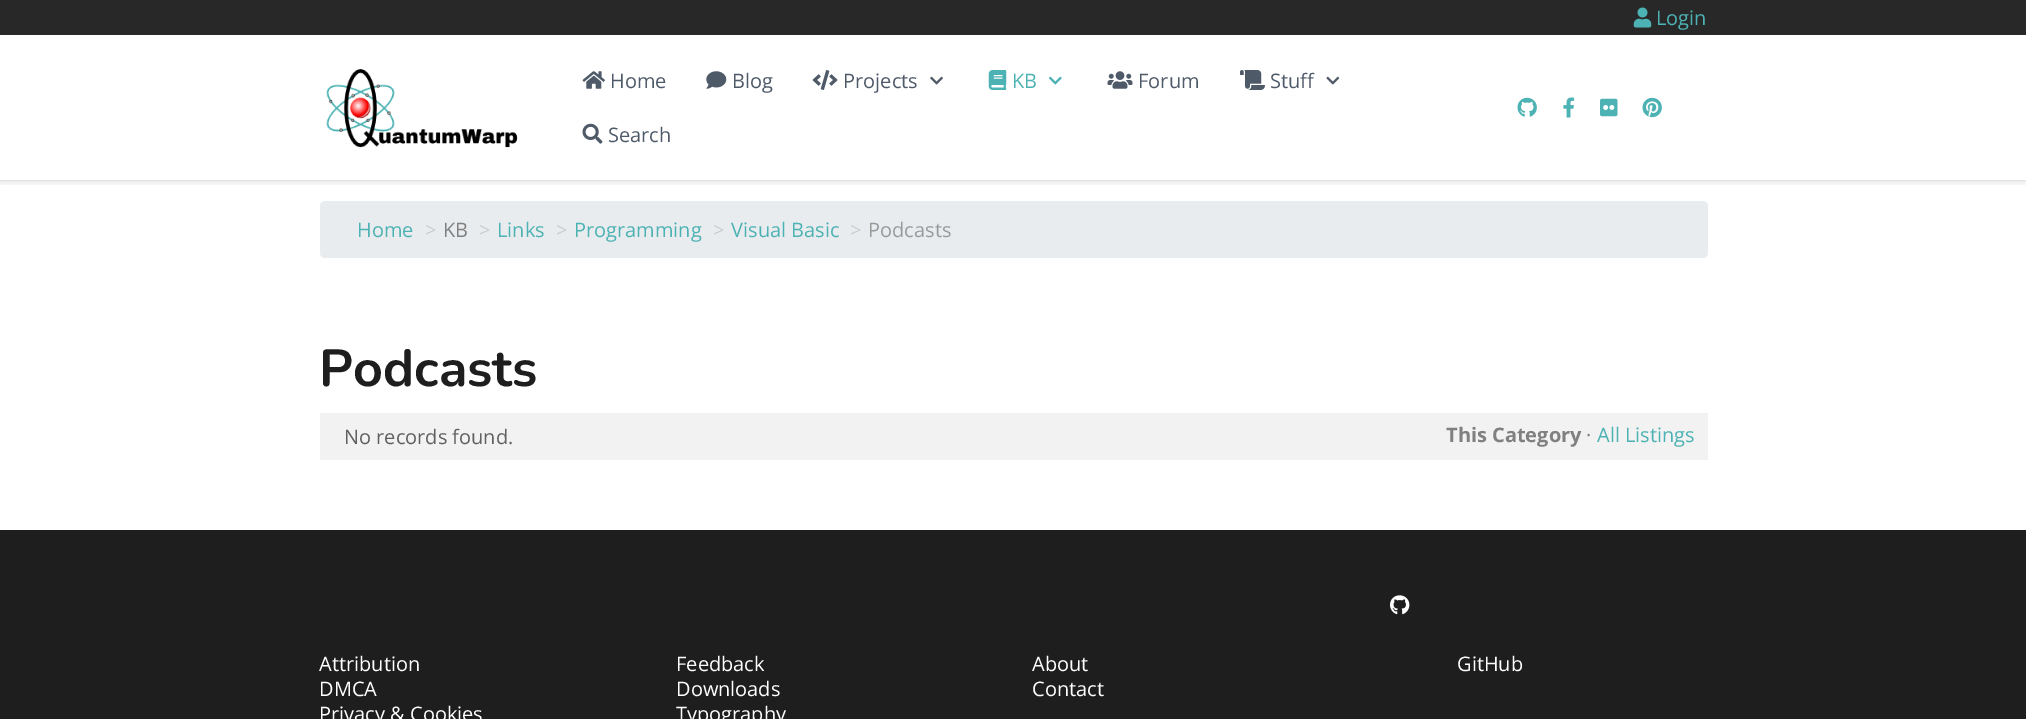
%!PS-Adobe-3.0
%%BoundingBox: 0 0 2026 719
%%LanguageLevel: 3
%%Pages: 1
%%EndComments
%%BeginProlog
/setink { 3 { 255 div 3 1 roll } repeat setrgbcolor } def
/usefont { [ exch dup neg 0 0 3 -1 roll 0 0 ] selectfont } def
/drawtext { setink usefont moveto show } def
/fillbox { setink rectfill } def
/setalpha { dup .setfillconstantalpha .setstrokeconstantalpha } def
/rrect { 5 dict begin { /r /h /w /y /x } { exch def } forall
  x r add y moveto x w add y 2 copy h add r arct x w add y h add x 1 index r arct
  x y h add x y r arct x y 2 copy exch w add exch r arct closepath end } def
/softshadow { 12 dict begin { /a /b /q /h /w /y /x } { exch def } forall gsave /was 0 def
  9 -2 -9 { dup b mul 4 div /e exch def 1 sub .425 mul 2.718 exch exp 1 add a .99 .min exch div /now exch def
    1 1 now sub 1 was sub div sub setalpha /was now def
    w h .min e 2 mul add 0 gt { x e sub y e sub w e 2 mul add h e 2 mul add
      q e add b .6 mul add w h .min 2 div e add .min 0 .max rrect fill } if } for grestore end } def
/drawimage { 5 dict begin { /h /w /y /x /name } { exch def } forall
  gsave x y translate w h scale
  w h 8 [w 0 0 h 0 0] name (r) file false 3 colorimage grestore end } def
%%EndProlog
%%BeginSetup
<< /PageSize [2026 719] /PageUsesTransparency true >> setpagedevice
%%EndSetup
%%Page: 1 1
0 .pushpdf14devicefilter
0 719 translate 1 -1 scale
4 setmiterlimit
0 0 2026 719 255 255 255 fillbox
0 0 2026 35 40 40 40 fillbox
(assets/img1.rgb) 1633 7 19 21 drawimage
(Login) 1656 25 /OpenSans-Regular 20 77 178 179 drawtext
gsave
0 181 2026 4 rectclip
0 0 0 setink
0 38 2026 146 0 2.5 0.07 softshadow
grestore
0 180 2026 1 222 226 230 fillbox
(assets/img2.rgb) 326 69 192 79 drawimage
(assets/img3.rgb) 582 71 23 18 drawimage
(Home) 610 88 /OpenSans-Regular 20 79 90 105 drawtext
(assets/img4.rgb) 706 71 21 18 drawimage
(Blog) 732 88 /OpenSans-Regular 20 79 90 105 drawtext
(assets/img5.rgb) 812 70 26 20 drawimage
(Projects) 843 88 /OpenSans-Regular 20 79 90 105 drawtext
(assets/img6.rgb) 930 76 13 9 drawimage
(assets/img7.rgb) 988 70 19 20 drawimage
(KB) 1012 88 /OpenSans-Regular 20 77 178 179 drawtext
(assets/img8.rgb) 1049 76 13 9 drawimage
(assets/img9.rgb) 1107 71 26 18 drawimage
(Forum) 1138 88 /OpenSans-Regular 20 79 90 105 drawtext
(assets/img10.rgb) 1240 70 25 20 drawimage
(Stuff) 1270 88 /OpenSans-Regular 20 79 90 105 drawtext
(assets/img11.rgb) 1326 76 14 9 drawimage
(assets/img12.rgb) 582 123 21 21 drawimage
(Search) 608 142 /OpenSans-Regular 20 79 90 105 drawtext
(assets/img13.rgb) 1517 97 20 20 drawimage
(assets/img14.rgb) 1563 97 12 21 drawimage
(assets/img15.rgb) 1600 98 18 19 drawimage
(assets/img16.rgb) 1642 97 20 21 drawimage
233 236 239 setink
320 201 1388 57 5 rrect fill
(Home) 357 237 /OpenSans-Regular 20 77 178 179 drawtext
(>) 425 237 /OpenSans-Regular 20 204 204 204 drawtext
(KB) 443 237 /OpenSans-Regular 20 128 128 128 drawtext
(>) 479 237 /OpenSans-Regular 20 204 204 204 drawtext
(Links) 497 237 /OpenSans-Regular 20 77 178 179 drawtext
(>) 556 237 /OpenSans-Regular 20 204 204 204 drawtext
(Programming) 574 237 /OpenSans-Regular 20 77 178 179 drawtext
(>) 713 237 /OpenSans-Regular 20 204 204 204 drawtext
(Visual Basic) 731 237 /OpenSans-Regular 20 77 178 179 drawtext
(>) 850 237 /OpenSans-Regular 20 204 204 204 drawtext
(Podcasts) 868 237 /OpenSans-Regular 20 153 153 153 drawtext
(Podcasts) 319 386 /Nunito-Bold 52 30 30 30 drawtext
320 413 1388 47 242 242 242 fillbox
(No records found.) 344 444 /OpenSans-Regular 20 96 96 96 drawtext
(This Category) 1446 442 /OpenSans-Bold 20 128 128 128 drawtext
(·) 1586 442 /OpenSans-Regular 20 128 128 128 drawtext
(All Listings) 1597 442 /OpenSans-Regular 20 77 178 179 drawtext
0 530 2026 189 30 30 30 fillbox
(Attribution) 319 671 /OpenSans-Regular 20 255 255 255 drawtext
(DMCA) 319 696 /OpenSans-Regular 20 255 255 255 drawtext
(Privacy & Cookies) 319 721 /OpenSans-Regular 20 255 255 255 drawtext
(Feedback) 676 671 /OpenSans-Regular 20 255 255 255 drawtext
(Downloads) 676 696 /OpenSans-Regular 20 255 255 255 drawtext
(Typography) 676 721 /OpenSans-Regular 20 255 255 255 drawtext
(About) 1032 671 /OpenSans-Regular 20 255 255 255 drawtext
(Contact) 1032 696 /OpenSans-Regular 20 255 255 255 drawtext
(assets/img17.rgb) 1390 595 20 20 drawimage
(GitHub) 1457 671 /OpenSans-Regular 20 255 255 255 drawtext
.poppdf14devicefilter showpage
%%EOF
